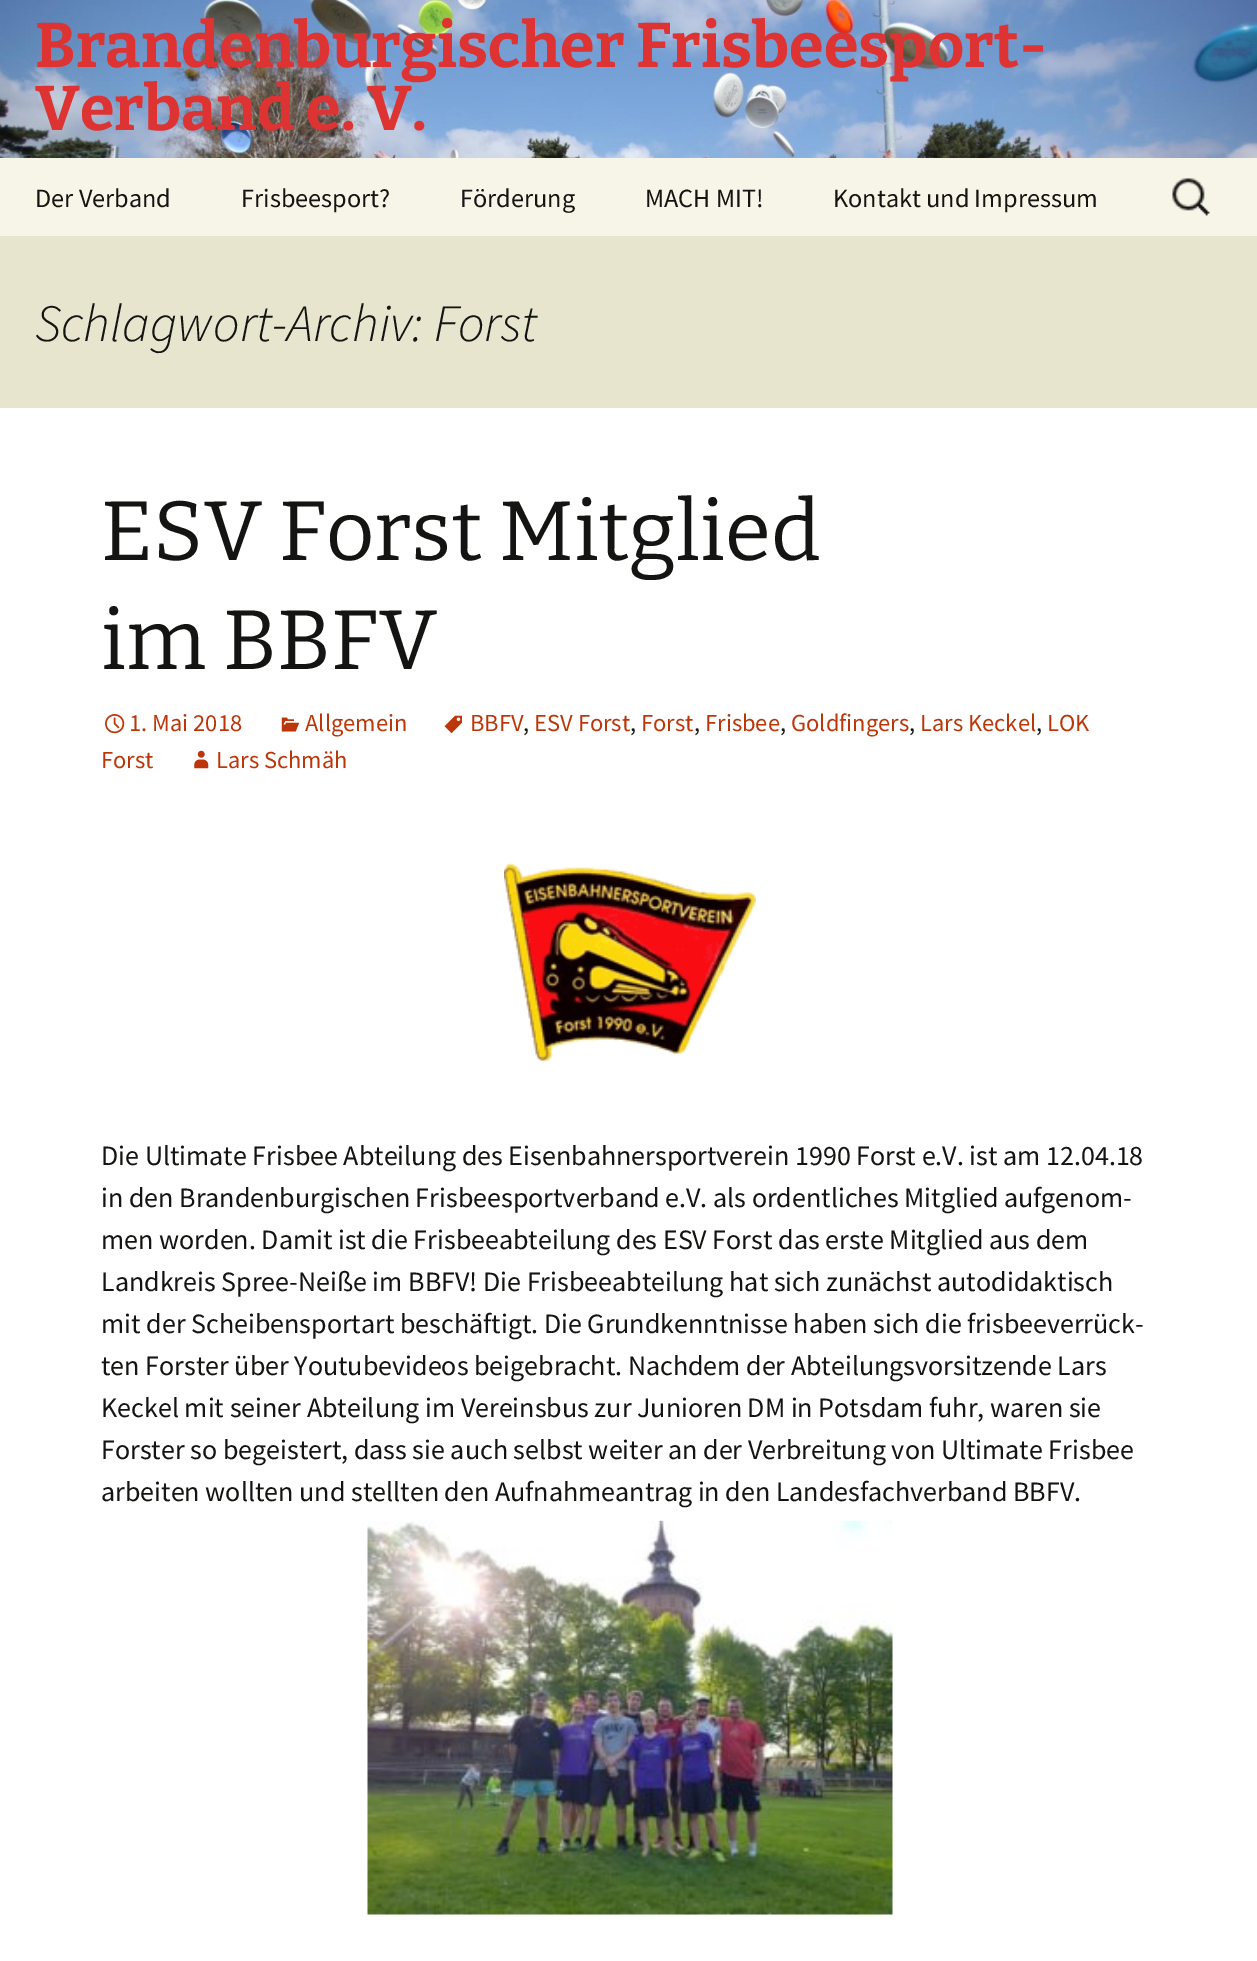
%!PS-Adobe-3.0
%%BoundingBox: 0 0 1257 1961
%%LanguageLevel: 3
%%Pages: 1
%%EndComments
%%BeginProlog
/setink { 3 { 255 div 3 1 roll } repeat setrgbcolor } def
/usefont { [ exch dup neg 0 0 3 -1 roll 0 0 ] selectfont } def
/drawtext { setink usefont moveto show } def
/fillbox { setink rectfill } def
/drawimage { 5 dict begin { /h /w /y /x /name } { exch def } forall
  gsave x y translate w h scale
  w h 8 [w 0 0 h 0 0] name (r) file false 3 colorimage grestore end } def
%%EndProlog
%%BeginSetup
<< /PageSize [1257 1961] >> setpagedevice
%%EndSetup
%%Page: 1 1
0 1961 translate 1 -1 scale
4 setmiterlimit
0 0 1257 1961 255 255 255 fillbox
(assets/img1.rgb) 0 0 1257 158 drawimage
(Brandenburgischer Frisbeesport-) 35 67 /Bitter-Thin 63 221 51 51 drawtext
(Verband e. V.) 35 130 /Bitter-Thin 63 221 51 51 drawtext
0 158 1257 78 247 245 231 fillbox
(Der Verband) 35 207 /SourceSansPro-Regular 26.25 20 20 18 drawtext
(Frisbeesport?) 241 207 /SourceSansPro-Regular 26.25 20 20 18 drawtext
(Förderung) 460 207 /SourceSansPro-Regular 26.25 20 20 18 drawtext
(MACH MIT!) 645 207 /SourceSansPro-Regular 26.25 20 20 18 drawtext
(Kontakt und Impressum) 833 207 /SourceSansPro-Regular 26.25 20 20 18 drawtext
(assets/img2.rgb) 1172 178 38 38 drawimage
0 236 1257 172 232 229 206 fillbox
(Schlagwort-Archiv: Forst) 35 341 /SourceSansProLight-LightItalic 52.5 20 20 18 drawtext
(ESV Forst Mitglied) 101 560 /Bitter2-Thin 84 20 20 18 drawtext
(im BBFV) 101 669 /Bitter2-Thin 84 20 20 18 drawtext
(assets/img3.rgb) 444 715 18 19 drawimage
(BBFV) 470 731 /SourceSansPro-Regular 24.5 188 54 10 drawtext
(,) 523 731 /SourceSansPro-Regular 24.5 20 20 18 drawtext
(ESV Forst) 534 731 /SourceSansPro-Regular 24.5 188 54 10 drawtext
(,) 630 731 /SourceSansPro-Regular 24.5 20 20 18 drawtext
(Forst) 641 731 /SourceSansPro-Regular 24.5 188 54 10 drawtext
(,) 694 731 /SourceSansPro-Regular 24.5 20 20 18 drawtext
(Frisbee) 705 731 /SourceSansPro-Regular 24.5 188 54 10 drawtext
(,) 780 731 /SourceSansPro-Regular 24.5 20 20 18 drawtext
(Goldfingers) 791 731 /SourceSansPro-Regular 24.5 188 54 10 drawtext
(,) 909 731 /SourceSansPro-Regular 24.5 20 20 18 drawtext
(Lars Keckel) 920 731 /SourceSansPro-Regular 24.5 188 54 10 drawtext
(,) 1036 731 /SourceSansPro-Regular 24.5 20 20 18 drawtext
(LOK) 1047 731 /SourceSansPro-Regular 24.5 188 54 10 drawtext
(Forst) 101 768 /SourceSansPro-Regular 24.5 188 54 10 drawtext
(assets/img4.rgb) 105 714 20 20 drawimage
(1. Mai 2018) 129 731 /SourceSansPro-Regular 24.5 188 54 10 drawtext
(assets/img5.rgb) 281 717 19 15 drawimage
(Allgemein) 305 731 /SourceSansPro-Regular 24.5 188 54 10 drawtext
(assets/img6.rgb) 194 750 15 19 drawimage
(Lars Schmäh) 216 768 /SourceSansPro-Regular 24.5 188 54 10 drawtext
(assets/img7.rgb) 504 862 252 201 drawimage
(Die Ultimate Frisbee Abteilung des Eisenbahnersportverein 1990 Forst e.V. ist am 12.04.18) 101 1165 /SourceSansPro-Regular 28 20 20 18 drawtext
(in den Brandenburgischen Frisbeesportverband e.V. als ordentliches Mitglied aufgenom-) 101 1207 /SourceSansPro-Regular 28 20 20 18 drawtext
(men worden. Damit ist die Frisbeeabteilung des ESV Forst das erste Mitglied aus dem) 101 1249 /SourceSansPro-Regular 28 20 20 18 drawtext
(Landkreis Spree-Neiße im BBFV! Die Frisbeeabteilung hat sich zunächst autodidaktisch) 101 1291 /SourceSansPro-Regular 28 20 20 18 drawtext
(mit der Scheibensportart beschäftigt. Die Grundkenntnisse haben sich die frisbeeverrück-) 101 1333 /SourceSansPro-Regular 28 20 20 18 drawtext
(ten Forster über Youtubevideos beigebracht. Nachdem der Abteilungsvorsitzende Lars) 101 1375 /SourceSansPro-Regular 28 20 20 18 drawtext
(Keckel mit seiner Abteilung im Vereinsbus zur Junioren DM in Potsdam fuhr, waren sie) 101 1417 /SourceSansPro-Regular 28 20 20 18 drawtext
(Forster so begeistert, dass sie auch selbst weiter an der Verbreitung von Ultimate Frisbee) 101 1459 /SourceSansPro-Regular 28 20 20 18 drawtext
(arbeiten wollten und stellten den Aufnahmeantrag in den Landesfachverband BBFV.) 101 1501 /SourceSansPro-Regular 28 20 20 18 drawtext
(assets/img8.rgb) 367 1520 526 395 drawimage
showpage
%%EOF
